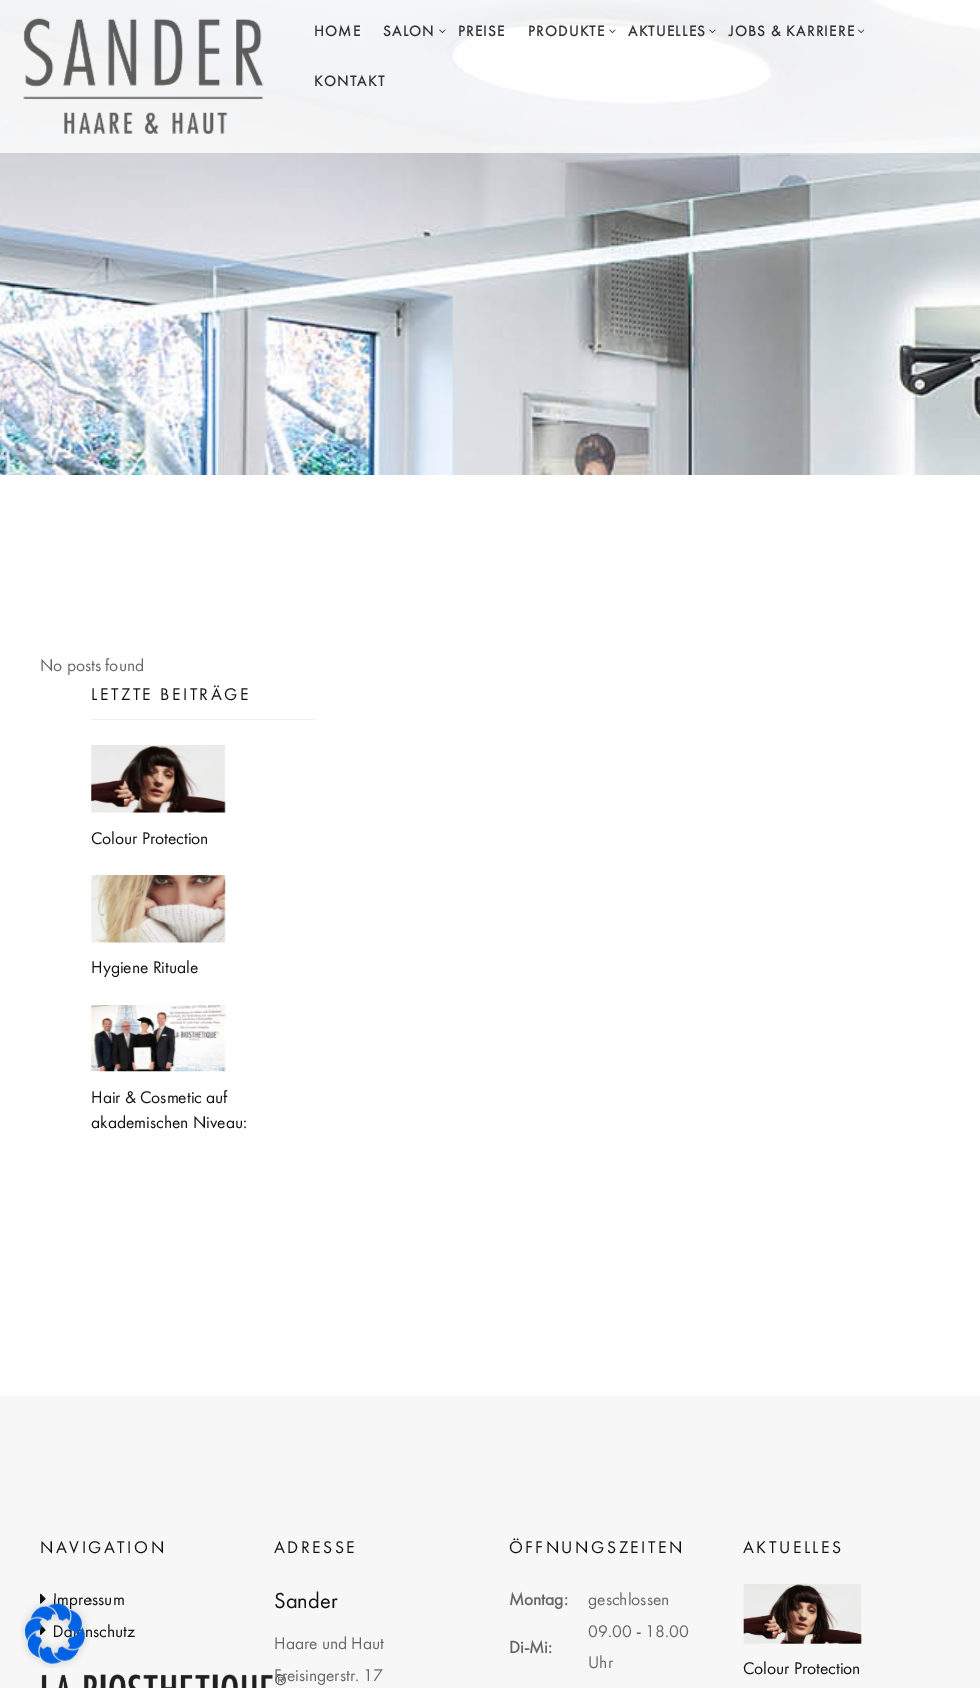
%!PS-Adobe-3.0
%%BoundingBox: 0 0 980 1688
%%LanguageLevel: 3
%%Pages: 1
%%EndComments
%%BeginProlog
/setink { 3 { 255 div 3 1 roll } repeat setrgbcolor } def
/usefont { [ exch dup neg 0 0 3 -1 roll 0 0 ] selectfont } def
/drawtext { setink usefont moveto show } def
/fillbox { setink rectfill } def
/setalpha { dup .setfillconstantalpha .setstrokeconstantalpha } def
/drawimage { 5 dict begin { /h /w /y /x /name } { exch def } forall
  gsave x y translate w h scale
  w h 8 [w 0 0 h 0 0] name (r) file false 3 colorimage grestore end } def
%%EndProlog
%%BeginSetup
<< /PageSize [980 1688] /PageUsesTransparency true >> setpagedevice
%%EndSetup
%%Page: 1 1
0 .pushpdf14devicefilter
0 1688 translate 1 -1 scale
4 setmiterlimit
0 0 980 1688 255 255 255 fillbox
(assets/img1.rgb) 0 0 980 475 drawimage
0.8 setalpha
0 0 980 153 255 255 255 fillbox
1 setalpha
(assets/img2.rgb) 23 18 241 116 drawimage
/FuturaPT-Bold 15 usefont
51 51 51 setink
314 36 moveto 1.25 0 (HOME) ashow
383 36 moveto 1.25 0 (SALON) ashow
(assets/img3.rgb) 439 29 7 5 drawimage
458 36 moveto 1.25 0 (PREISE) ashow
528 36 moveto 1.25 0 (PRODUKTE) ashow
(assets/img4.rgb) 609 29 7 5 drawimage
628 36 moveto 1.25 0 (AKTUELLES) ashow
(assets/img5.rgb) 709 29 7 5 drawimage
729 36 moveto 1.25 0 (JOBS & KARRIERE) ashow
(assets/img6.rgb) 858 29 7 4 drawimage
314 86 moveto 1.25 0 (KONTAKT) ashow
(No posts found) 40 671 /FuturaPT-Regular 17.5 102 102 102 drawtext
91 719 224 1 238 238 238 fillbox
17 17 17 setink
91 700 moveto 2.5 0 (LETZTE BEITRÄGE) ashow
(assets/img7.rgb) 91 745 135 68 drawimage
(Colour Protection) 91 844 /FuturaPT-Regular 17.5 17 17 17 drawtext
(assets/img8.rgb) 91 875 135 68 drawimage
(Hygiene Rituale) 91 973 /FuturaPT-Regular 17.5 17 17 17 drawtext
(assets/img9.rgb) 91 1005 135 67 drawimage
(Hair & Cosmetic auf) 91 1103 /FuturaPT-Regular 17.5 17 17 17 drawtext
(akademischen Niveau:) 91 1128 /FuturaPT-Regular 17.5 17 17 17 drawtext
0 1396 980 292 247 247 247 fillbox
17 17 17 setink
40 1553 moveto 2.5 0 (NAVIGATION) ashow
(assets/img10.rgb) 40 1593 6 11 drawimage
(Impressum) 53 1605 /FuturaPT-Regular 17.5 17 17 17 drawtext
(assets/img11.rgb) 40 1625 6 10 drawimage
(Da) 53 1637 /FuturaPT-Regular 17.5 17 17 17 drawtext
(nschutz) 85 1637 /FuturaPT-Regular 17.5 17 17 17 drawtext
(assets/img12.rgb) 41 1674 245 14 drawimage
274 1553 moveto 2.5 0 (ADRESSE) ashow
(Sander) 274 1608 /FuturaPT-Regular 22.5 17 17 17 drawtext
(Haare und Haut) 274 1649 /FuturaPT-Regular 17.5 102 102 102 drawtext
(Freisingerstr. 17) 274 1681 /FuturaPT-Regular 17.5 102 102 102 drawtext
17 17 17 setink
509 1553 moveto 2.5 0 (ÖFFNUNGSZEITEN) ashow
(Montag:) 509 1605 /FuturaPT-Bold 17.5 102 102 102 drawtext
(geschlossen) 588 1605 /FuturaPT-Regular 17.5 102 102 102 drawtext
(Di-Mi:) 509 1653 /FuturaPT-Bold 17.5 102 102 102 drawtext
(09.00 - 18.00) 588 1637 /FuturaPT-Regular 17.5 102 102 102 drawtext
(Uhr) 588 1668 /FuturaPT-Regular 17.5 102 102 102 drawtext
17 17 17 setink
743 1553 moveto 2.5 0 (AKTUELLES) ashow
(assets/img13.rgb) 743 1583 119 61 drawimage
(Colour Protection) 743 1674 /FuturaPT-Regular 17.5 17 17 17 drawtext
(assets/img14.rgb) 20 1599 70 69 drawimage
.poppdf14devicefilter showpage
%%EOF
